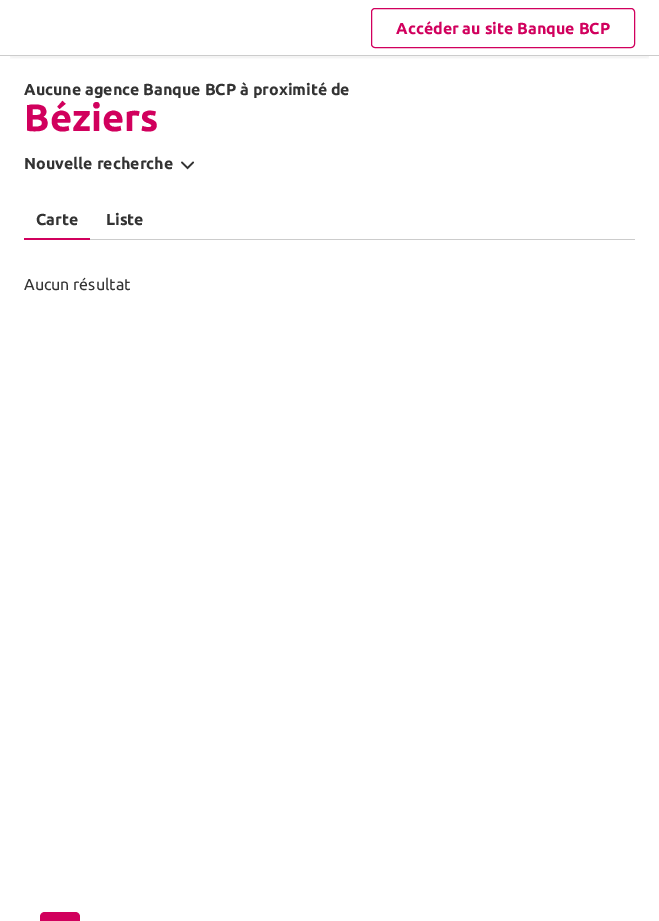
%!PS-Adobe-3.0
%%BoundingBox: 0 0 659 921
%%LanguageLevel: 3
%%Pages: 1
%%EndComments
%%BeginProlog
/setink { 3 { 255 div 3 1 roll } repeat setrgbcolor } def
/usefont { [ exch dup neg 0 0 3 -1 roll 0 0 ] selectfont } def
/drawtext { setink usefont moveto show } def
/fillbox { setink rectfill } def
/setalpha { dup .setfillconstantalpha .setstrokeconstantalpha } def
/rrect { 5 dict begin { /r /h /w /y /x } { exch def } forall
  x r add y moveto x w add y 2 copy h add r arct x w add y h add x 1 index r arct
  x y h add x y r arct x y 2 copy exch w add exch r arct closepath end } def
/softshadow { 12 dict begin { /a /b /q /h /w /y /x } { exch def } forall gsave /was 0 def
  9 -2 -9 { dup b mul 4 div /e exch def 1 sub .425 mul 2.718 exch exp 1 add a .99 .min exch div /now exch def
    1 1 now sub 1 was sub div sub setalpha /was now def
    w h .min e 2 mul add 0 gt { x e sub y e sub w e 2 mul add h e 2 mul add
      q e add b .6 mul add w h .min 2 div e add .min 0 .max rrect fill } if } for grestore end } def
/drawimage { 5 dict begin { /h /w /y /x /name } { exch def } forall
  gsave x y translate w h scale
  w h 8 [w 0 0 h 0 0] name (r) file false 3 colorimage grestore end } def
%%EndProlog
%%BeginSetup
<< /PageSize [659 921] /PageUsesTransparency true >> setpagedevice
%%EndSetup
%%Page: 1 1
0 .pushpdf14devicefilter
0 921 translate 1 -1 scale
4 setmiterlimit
0 0 659 921 255 255 255 fillbox
gsave
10 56 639 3 rectclip
0 0 0 setink
11 17 637 34 0 5.5 0.3 softshadow
grestore
0 55 659 1 204 204 204 fillbox
209 0 93 setink
371.5 8.5 263 39 3.5 rrect stroke
(Accéder au site Banque BCP) 396 34 /Ubuntu-Bold 16 209 0 93 drawtext
(Aucune agence Banque BCP à proximité de) 24 95 /Ubuntu-Bold 16 51 51 51 drawtext
(Béziers) 24 131 /Ubuntu-Bold 38 209 0 93 drawtext
(Nouvelle recherche) 24 169 /Ubuntu-Bold 16 51 51 51 drawtext
(assets/img1.rgb) 181 161 14 9 drawimage
90 239 545 1 204 204 204 fillbox
(Carte) 36 225 /Ubuntu-Bold 16 51 51 51 drawtext
24 238 66 2 209 0 93 fillbox
(Liste) 106 225 /Ubuntu-Bold 16 51 51 51 drawtext
(Aucun résultat) 24 290 /Ubuntu-Regular 16 51 51 51 drawtext
209 0 93 setink
45 912 moveto 75 912 lineto 78 912 80 914 80 917 curveto 80 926 lineto 40 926 lineto 40 917 lineto 40 914 42 912 45 912 curveto closepath fill
.poppdf14devicefilter showpage
%%EOF
